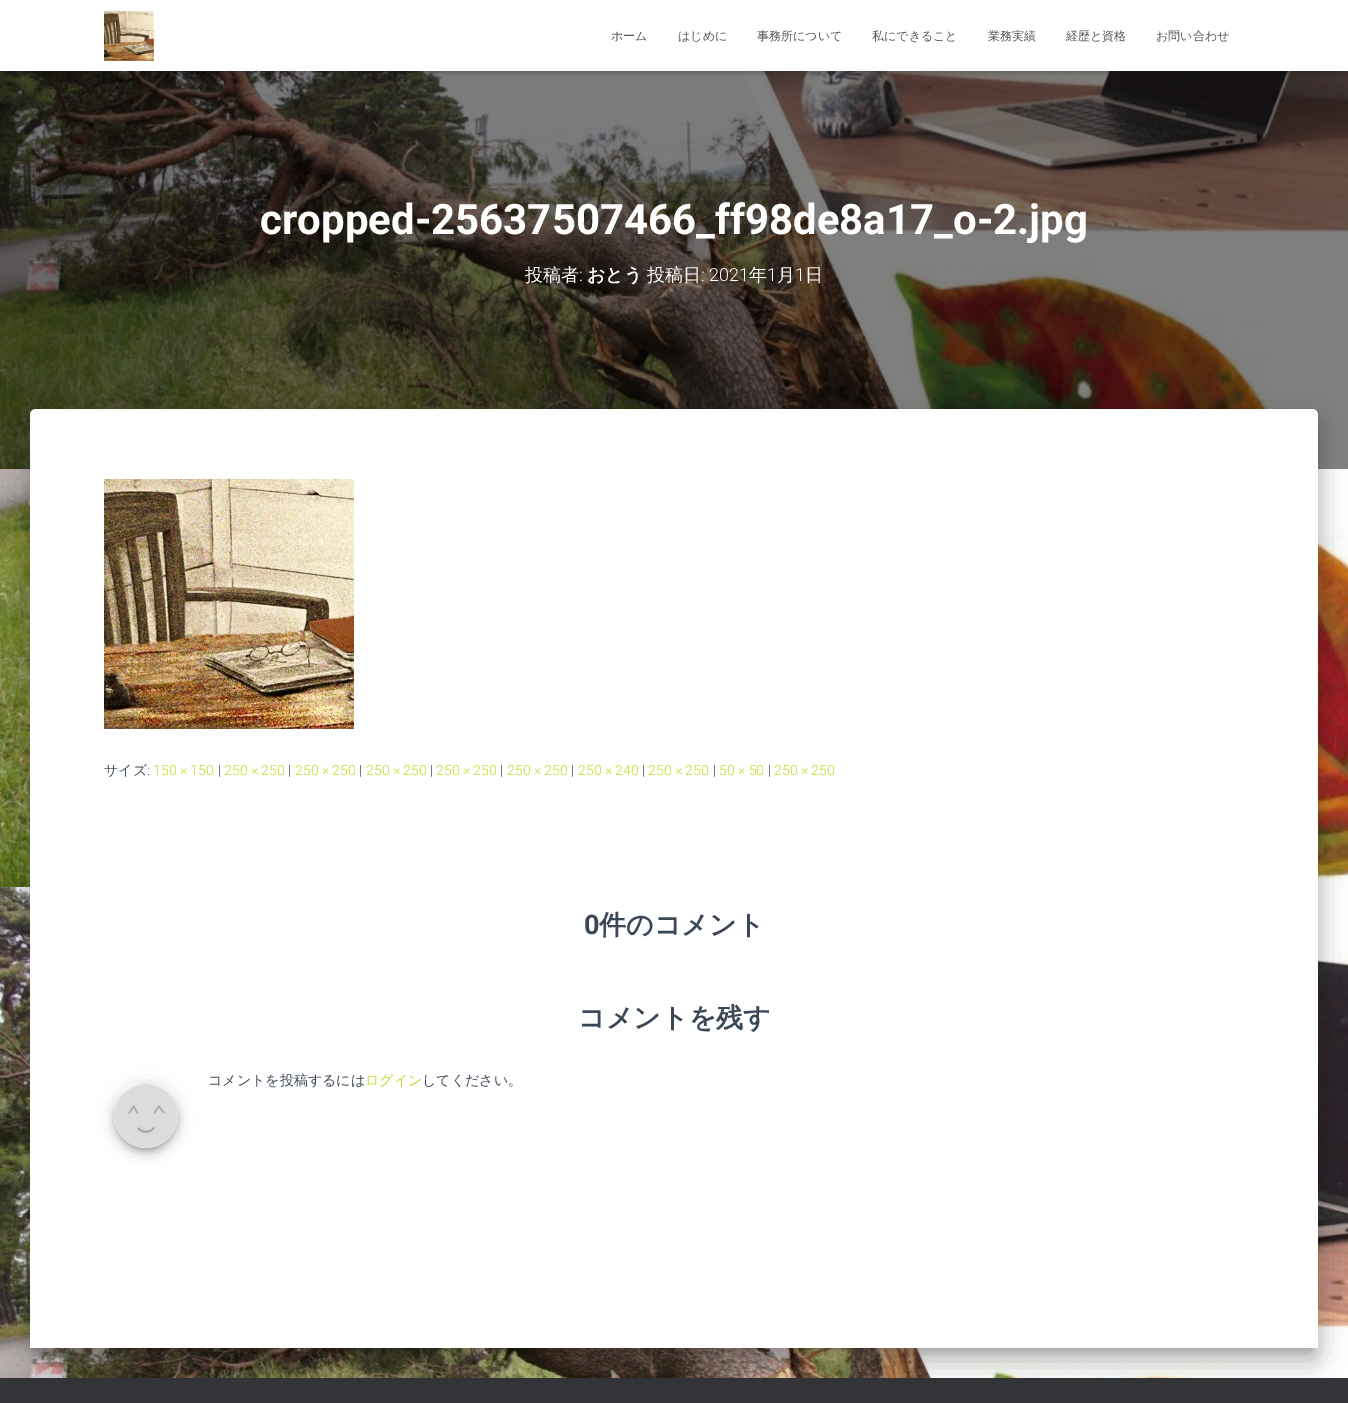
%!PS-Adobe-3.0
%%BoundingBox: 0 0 1348 1403
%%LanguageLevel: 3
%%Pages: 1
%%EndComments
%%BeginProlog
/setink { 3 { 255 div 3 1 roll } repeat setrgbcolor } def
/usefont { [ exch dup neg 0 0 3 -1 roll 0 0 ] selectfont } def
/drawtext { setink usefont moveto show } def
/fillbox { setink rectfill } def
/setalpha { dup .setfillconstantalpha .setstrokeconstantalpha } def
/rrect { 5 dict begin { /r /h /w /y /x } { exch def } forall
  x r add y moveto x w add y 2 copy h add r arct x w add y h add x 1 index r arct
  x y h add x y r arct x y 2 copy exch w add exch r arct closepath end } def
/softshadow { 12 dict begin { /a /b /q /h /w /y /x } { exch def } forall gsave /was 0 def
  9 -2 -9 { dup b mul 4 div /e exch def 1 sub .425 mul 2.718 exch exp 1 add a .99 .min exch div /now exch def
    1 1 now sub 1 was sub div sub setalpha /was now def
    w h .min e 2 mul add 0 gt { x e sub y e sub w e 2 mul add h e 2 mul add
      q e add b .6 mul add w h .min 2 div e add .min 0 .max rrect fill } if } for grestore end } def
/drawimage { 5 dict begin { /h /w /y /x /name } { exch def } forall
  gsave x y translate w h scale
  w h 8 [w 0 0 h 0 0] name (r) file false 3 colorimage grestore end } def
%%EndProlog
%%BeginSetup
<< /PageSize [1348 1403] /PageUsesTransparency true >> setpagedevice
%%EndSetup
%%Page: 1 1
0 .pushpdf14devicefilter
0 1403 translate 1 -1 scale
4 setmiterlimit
0 0 1348 1403 255 255 255 fillbox
(assets/img1.rgb) 0 468 1348 910 drawimage
(assets/img3.rgb) 0 71 1348 398 drawimage
0.5 setalpha
0 71 1348 398 0 0 0 fillbox
1 setalpha
2 6 1344 67 0 2.5 0.1 softshadow
0 1 1348 71 0 5 0.12 softshadow
6 7 1336 59 0 5 0.42 softshadow
0 0 1348 71 255 255 255 fillbox
(assets/img2.rgb) 104 10 50 51 drawimage
(ホーム) 611 40 /WenQuanYiZenHei-Medium 12 85 85 85 drawtext
(はじめに) 678 40 /WenQuanYiZenHei-Medium 12 85 85 85 drawtext
(事務所について) 757 40 /WenQuanYiZenHei-Medium 12 85 85 85 drawtext
(私にできること) 872 40 /WenQuanYiZenHei-Medium 12 85 85 85 drawtext
(業務実績) 988 40 /WenQuanYiZenHei-Medium 12 85 85 85 drawtext
(経歴と資格) 1066 40 /WenQuanYiZenHei-Medium 12 85 85 85 drawtext
(お問い合わせ) 1156 40 /WenQuanYiZenHei-Medium 12 85 85 85 drawtext
(cropped-25637507466_ff98de8a17_o-2.jpg) 260 234 /Roboto-Bold 42 255 255 255 drawtext
(投稿者) 525 281 /WenQuanYiZenHei-Medium 18 255 255 255 drawtext
(:) 579 281 /Roboto-Light 18 255 255 255 drawtext
(おとう) 587 281 /WenQuanYiZenHei-Bold 18 255 255 255 drawtext
(投稿日) 647 281 /WenQuanYiZenHei-Medium 18 255 255 255 drawtext
(: 2021) 701 281 /Roboto-Light 18 255 255 255 drawtext
(年) 749 281 /WenQuanYiZenHei-Medium 18 255 255 255 drawtext
(1) 767 281 /Roboto-Light 18 255 255 255 drawtext
(月) 777 281 /WenQuanYiZenHei-Medium 18 255 255 255 drawtext
(1) 795 281 /Roboto-Light 18 255 255 255 drawtext
(日) 805 281 /WenQuanYiZenHei-Medium 18 255 255 255 drawtext
0 0 0 setink
35 422 1278 929 1 5 0.2 softshadow
0 1378 1348 25 50 52 55 fillbox
0 0 0 setink
25 410 1298 949 11 15 0.12 softshadow
28 423 1292 943 8 12 0.14 softshadow
255 255 255 setink
36 409 moveto 1312 409 lineto 1315.5 409 1318 411.5 1318 415 curveto 1318 1348 lineto 30 1348 lineto 30 415 lineto 30 411.5 32.5 409 36 409 curveto closepath fill
(assets/img4.rgb) 104 479 250 250 drawimage
(サイズ) 104 775 /WenQuanYiZenHei-Medium 14 60 72 88 drawtext
(:) 147 775 /Roboto-Light 14 60 72 88 drawtext
(150 × 150) 153 775 /Roboto-Light 14 186 221 28 drawtext
(|) 218 775 /Roboto-Light 14 60 72 88 drawtext
(250 × 250) 224 775 /Roboto-Light 14 186 221 28 drawtext
(|) 288 775 /Roboto-Light 14 60 72 88 drawtext
(250 × 250) 295 775 /Roboto-Light 14 186 221 28 drawtext
(|) 359 775 /Roboto-Light 14 60 72 88 drawtext
(250 × 250) 366 775 /Roboto-Light 14 186 221 28 drawtext
(|) 430 775 /Roboto-Light 14 60 72 88 drawtext
(250 × 250) 436 775 /Roboto-Light 14 186 221 28 drawtext
(|) 500 775 /Roboto-Light 14 60 72 88 drawtext
(250 × 250) 507 775 /Roboto-Light 14 186 221 28 drawtext
(|) 571 775 /Roboto-Light 14 60 72 88 drawtext
(250 × 240) 578 775 /Roboto-Light 14 186 221 28 drawtext
(|) 642 775 /Roboto-Light 14 60 72 88 drawtext
(250 × 250) 648 775 /Roboto-Light 14 186 221 28 drawtext
(|) 713 775 /Roboto-Light 14 60 72 88 drawtext
(50 × 50) 719 775 /Roboto-Light 14 186 221 28 drawtext
(|) 768 775 /Roboto-Light 14 60 72 88 drawtext
(250 × 250) 774 775 /Roboto-Light 14 186 221 28 drawtext
(0) 584 934 /RobotoSlab-Bold 27 60 72 88 drawtext
(件のコメント) 599 934 /WenQuanYiZenHei-Bold 27 60 72 88 drawtext
(コメントを残す) 578 1027 /WenQuanYiZenHei-Bold 27 60 72 88 drawtext
0 0 0 setink
115 1088 62 62 31 2.5 0.2 softshadow
114 1085 64 64 32 9 0.12 softshadow
114 1090 64 64 32 5 0.14 softshadow
(assets/img5.rgb) 114 1084 64 64 drawimage
(コメントを投稿するには) 208 1085 /WenQuanYiZenHei-Medium 14 60 72 88 drawtext
(ログイン) 365 1085 /WenQuanYiZenHei-Medium 14 186 221 28 drawtext
(してください。) 422 1085 /WenQuanYiZenHei-Medium 14 60 72 88 drawtext
.poppdf14devicefilter showpage
%%EOF
